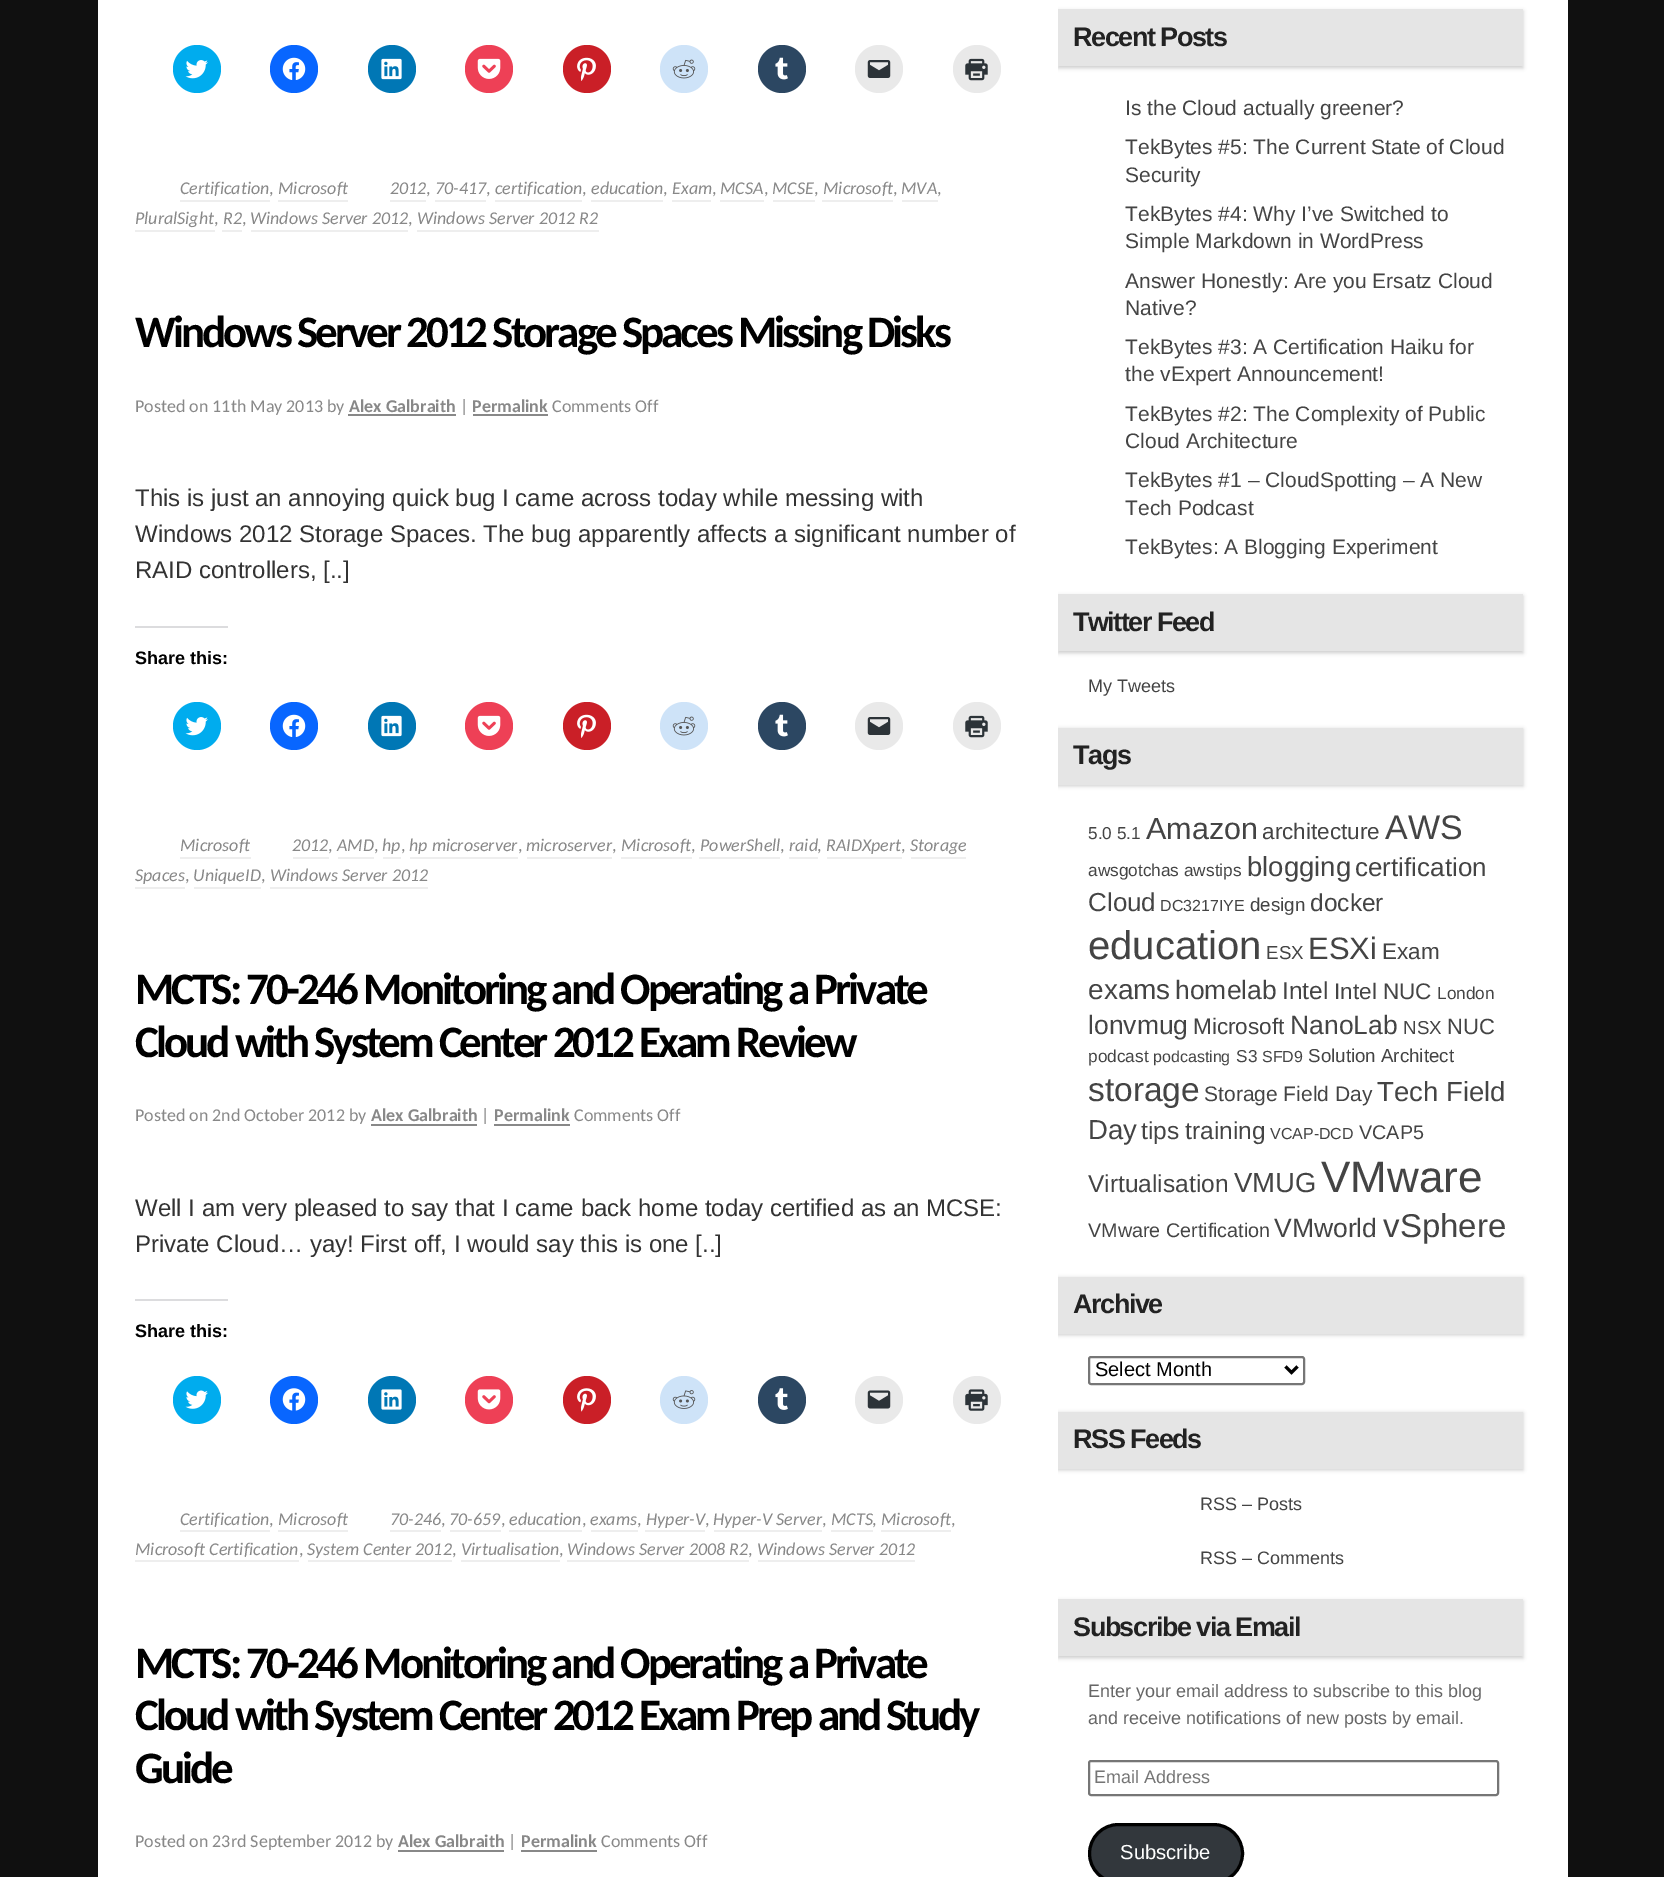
%!PS-Adobe-3.0
%%BoundingBox: 0 0 1664 1877
%%LanguageLevel: 3
%%Pages: 1
%%EndComments
%%BeginProlog
/setink { 3 { 255 div 3 1 roll } repeat setrgbcolor } def
/usefont { [ exch dup neg 0 0 3 -1 roll 0 0 ] selectfont } def
/drawtext { setink usefont moveto show } def
/fillbox { setink rectfill } def
/setalpha { dup .setfillconstantalpha .setstrokeconstantalpha } def
/disc { newpath 0 360 arc closepath } def
/rrect { 5 dict begin { /r /h /w /y /x } { exch def } forall
  x r add y moveto x w add y 2 copy h add r arct x w add y h add x 1 index r arct
  x y h add x y r arct x y 2 copy exch w add exch r arct closepath end } def
/softshadow { 12 dict begin { /a /b /q /h /w /y /x } { exch def } forall gsave /was 0 def
  9 -2 -9 { dup b mul 4 div /e exch def 1 sub .425 mul 2.718 exch exp 1 add a .99 .min exch div /now exch def
    1 1 now sub 1 was sub div sub setalpha /was now def
    w h .min e 2 mul add 0 gt { x e sub y e sub w e 2 mul add h e 2 mul add
      q e add b .6 mul add w h .min 2 div e add .min 0 .max rrect fill } if } for grestore end } def
/drawimage { 5 dict begin { /h /w /y /x /name } { exch def } forall
  gsave x y translate w h scale
  w h 8 [w 0 0 h 0 0] name (r) file false 3 colorimage grestore end } def
%%EndProlog
%%BeginSetup
<< /PageSize [1664 1877] /PageUsesTransparency true >> setpagedevice
%%EndSetup
%%Page: 1 1
0 .pushpdf14devicefilter
0 1877 translate 1 -1 scale
4 setmiterlimit
0 0 1664 1877 16 16 16 fillbox
98 0 1470 1877 255 255 255 fillbox
0 172 238 setink
197 69 24 disc fill
(assets/img1.rgb) 185 60 23 19 drawimage
8 102 255 setink
294 69 24 disc fill
(assets/img2.rgb) 282 57 24 23 drawimage
0 119 181 setink
392 69 24 disc fill
(assets/img3.rgb) 381 58 21 22 drawimage
238 64 86 setink
489 69 24 disc fill
(assets/img4.rgb) 477 58 24 21 drawimage
202 31 39 setink
587 69 24 disc fill
(assets/img5.rgb) 577 57 19 24 drawimage
206 227 248 setink
684 69 24 disc fill
(assets/img6.rgb) 672 59 24 20 drawimage
44 71 98 setink
782 69 24 disc fill
(assets/img7.rgb) 775 57 13 23 drawimage
233 233 233 setink
879 69 24 disc fill
(assets/img8.rgb) 867 60 24 18 drawimage
977 69 24 disc fill
(assets/img9.rgb) 965 58 23 23 drawimage
(Certification) 180 194 /Carlito-Italic 18 136 136 136 drawtext
(Microsoft) 278 194 /Carlito-Italic 18 136 136 136 drawtext
(2012) 390 194 /Carlito-Italic 18 136 136 136 drawtext
(70-417) 435 194 /Carlito-Italic 18 136 136 136 drawtext
(certification) 495 194 /Carlito-Italic 18 136 136 136 drawtext
(education) 591 194 /Carlito-Italic 18 136 136 136 drawtext
(Exam) 672 194 /Carlito-Italic 18 136 136 136 drawtext
(MCSA) 720 194 /Carlito-Italic 18 136 136 136 drawtext
(MCSE) 772 194 /Carlito-Italic 18 136 136 136 drawtext
(Microsoft) 823 194 /Carlito-Italic 18 136 136 136 drawtext
(MVA) 901 194 /Carlito-Italic 18 136 136 136 drawtext
(,) 269 194 /Carlito-Regular 18 136 136 136 drawtext
180 200 90 2 238 238 238 fillbox
278 200 70 2 238 238 238 fillbox
(,) 426 194 /Carlito-Regular 18 136 136 136 drawtext
390 200 36 2 238 238 238 fillbox
(,) 486 194 /Carlito-Regular 18 136 136 136 drawtext
435 200 51 2 238 238 238 fillbox
(,) 582 194 /Carlito-Regular 18 136 136 136 drawtext
495 200 87 2 238 238 238 fillbox
(,) 663 194 /Carlito-Regular 18 136 136 136 drawtext
591 200 72 2 238 238 238 fillbox
(,) 712 194 /Carlito-Regular 18 136 136 136 drawtext
672 200 39 2 238 238 238 fillbox
(,) 764 194 /Carlito-Regular 18 136 136 136 drawtext
720 200 44 2 238 238 238 fillbox
(,) 814 194 /Carlito-Regular 18 136 136 136 drawtext
773 200 42 2 238 238 238 fillbox
(,) 893 194 /Carlito-Regular 18 136 136 136 drawtext
822 200 71 2 238 238 238 fillbox
(,) 937 194 /Carlito-Regular 18 136 136 136 drawtext
902 200 36 2 238 238 238 fillbox
(PluralSight) 135 224 /Carlito-Italic 18 136 136 136 drawtext
(R2) 223 224 /Carlito-Italic 18 136 136 136 drawtext
(Windows Server 2012) 250 224 /Carlito-Italic 18 136 136 136 drawtext
(Windows Server 2012 R2) 417 224 /Carlito-Italic 18 136 136 136 drawtext
(,) 214 224 /Carlito-Regular 18 136 136 136 drawtext
135 230 80 2 238 238 238 fillbox
(,) 242 224 /Carlito-Regular 18 136 136 136 drawtext
222 230 20 2 238 238 238 fillbox
(,) 408 224 /Carlito-Regular 18 136 136 136 drawtext
251 230 157 2 238 238 238 fillbox
417 230 182 2 238 238 238 fillbox
/Carlito-Bold 45 usefont
0 0 0 setink
135 347 moveto -3 0 (Windows Server 2012 Storage Spaces Missing Disks) ashow
(Posted on 11th May 2013 by) 135 412 /Carlito-Regular 18 136 136 136 drawtext
(Alex Galbraith) 349 412 /Carlito-Bold 18 136 136 136 drawtext
348 414 108 2 136 136 136 fillbox
(|) 460 412 /Carlito-Regular 18 136 136 136 drawtext
(Permalink) 472 412 /Carlito-Bold 18 136 136 136 drawtext
473 414 75 2 136 136 136 fillbox
(Comments Off) 552 412 /Carlito-Regular 18 136 136 136 drawtext
(This is just an annoying quick bug I came across today while messing with) 135 506 /LiberationSans-Regular 24 51 51 51 drawtext
(Windows 2012 Storage Spaces. The bug apparently affects a significant number of) 135 542 /LiberationSans-Regular 24 51 51 51 drawtext
(RAID controllers, [..]) 135 578 /LiberationSans-Regular 24 51 51 51 drawtext
135 626 93 2 220 220 222 fillbox
(Share this:) 135 664 /LiberationSans-Bold 18 0 0 0 drawtext
0 172 238 setink
197 726 24 disc fill
(assets/img1.rgb) 185 717 23 19 drawimage
8 102 255 setink
294 726 24 disc fill
(assets/img2.rgb) 282 714 24 23 drawimage
0 119 181 setink
392 726 24 disc fill
(assets/img3.rgb) 381 715 21 22 drawimage
238 64 86 setink
489 726 24 disc fill
(assets/img4.rgb) 477 715 24 21 drawimage
202 31 39 setink
587 726 24 disc fill
(assets/img5.rgb) 577 714 19 24 drawimage
206 227 248 setink
684 726 24 disc fill
(assets/img6.rgb) 672 716 24 20 drawimage
44 71 98 setink
782 726 24 disc fill
(assets/img7.rgb) 775 714 13 23 drawimage
233 233 233 setink
879 726 24 disc fill
(assets/img8.rgb) 867 717 24 18 drawimage
977 726 24 disc fill
(assets/img9.rgb) 965 715 23 23 drawimage
(Microsoft) 180 851 /Carlito-Italic 18 136 136 136 drawtext
180 857 71 2 238 238 238 fillbox
(2012) 292 851 /Carlito-Italic 18 136 136 136 drawtext
(,) 328 851 /Carlito-Regular 18 136 136 136 drawtext
293 857 36 2 238 238 238 fillbox
(AMD) 337 851 /Carlito-Italic 18 136 136 136 drawtext
(,) 374 851 /Carlito-Regular 18 136 136 136 drawtext
338 857 36 2 238 238 238 fillbox
(hp) 382 851 /Carlito-Italic 18 136 136 136 drawtext
(,) 401 851 /Carlito-Regular 18 136 136 136 drawtext
383 857 18 2 238 238 238 fillbox
(hp microserver) 409 851 /Carlito-Italic 18 136 136 136 drawtext
(,) 518 851 /Carlito-Regular 18 136 136 136 drawtext
410 857 108 2 238 238 238 fillbox
(microserver) 526 851 /Carlito-Italic 18 136 136 136 drawtext
(,) 612 851 /Carlito-Regular 18 136 136 136 drawtext
527 857 85 2 238 238 238 fillbox
(Microsoft) 621 851 /Carlito-Italic 18 136 136 136 drawtext
(,) 691 851 /Carlito-Regular 18 136 136 136 drawtext
621 857 71 2 238 238 238 fillbox
(PowerShell) 700 851 /Carlito-Italic 18 136 136 136 drawtext
(,) 780 851 /Carlito-Regular 18 136 136 136 drawtext
699 857 81 2 238 238 238 fillbox
(raid) 789 851 /Carlito-Italic 18 136 136 136 drawtext
(,) 817 851 /Carlito-Regular 18 136 136 136 drawtext
789 857 29 2 238 238 238 fillbox
(RAIDXpert) 826 851 /Carlito-Italic 18 136 136 136 drawtext
(,) 901 851 /Carlito-Regular 18 136 136 136 drawtext
827 857 75 2 238 238 238 fillbox
911 857 55 2 238 238 238 fillbox
(Storage) 910 851 /Carlito-Italic 18 136 136 136 drawtext
(Spaces) 135 881 /Carlito-Italic 18 136 136 136 drawtext
(,) 185 881 /Carlito-Regular 18 136 136 136 drawtext
135 887 50 2 238 238 238 fillbox
(UniqueID) 193 881 /Carlito-Italic 18 136 136 136 drawtext
(,) 261 881 /Carlito-Regular 18 136 136 136 drawtext
194 887 67 2 238 238 238 fillbox
270 887 158 2 238 238 238 fillbox
(Windows Server 2012) 270 881 /Carlito-Italic 18 136 136 136 drawtext
/Carlito-Bold 45 usefont
0 0 0 setink
135 1004 moveto -3 0 (MCTS: 70-246 Monitoring and Operating a Private) ashow
135 1057 moveto -3 0 (Cloud with System Center 2012 Exam Review) ashow
(Posted on 2nd October 2012 by) 135 1121 /Carlito-Regular 18 136 136 136 drawtext
(Alex Galbraith) 371 1121 /Carlito-Bold 18 136 136 136 drawtext
371 1124 106 2 136 136 136 fillbox
(|) 481 1121 /Carlito-Regular 18 136 136 136 drawtext
(Permalink) 494 1121 /Carlito-Bold 18 136 136 136 drawtext
494 1124 76 2 136 136 136 fillbox
(Comments Off) 574 1121 /Carlito-Regular 18 136 136 136 drawtext
(Well I am very pleased to say that I came back home today certified as an MCSE:) 135 1216 /LiberationSans-Regular 24 51 51 51 drawtext
(Private Cloud… yay! First off, I would say this is one [..]) 135 1252 /LiberationSans-Regular 24 51 51 51 drawtext
135 1299 93 2 220 220 222 fillbox
(Share this:) 135 1337 /LiberationSans-Bold 18 0 0 0 drawtext
0 172 238 setink
197 1400 24 disc fill
(assets/img10.rgb) 185 1390 23 19 drawimage
8 102 255 setink
294 1400 24 disc fill
(assets/img11.rgb) 282 1388 24 23 drawimage
0 119 181 setink
392 1400 24 disc fill
(assets/img12.rgb) 381 1389 21 21 drawimage
238 64 86 setink
489 1400 24 disc fill
(assets/img13.rgb) 477 1389 24 21 drawimage
202 31 39 setink
587 1400 24 disc fill
(assets/img14.rgb) 577 1388 19 24 drawimage
206 227 248 setink
684 1400 24 disc fill
(assets/img15.rgb) 672 1390 24 19 drawimage
44 71 98 setink
782 1400 24 disc fill
(assets/img16.rgb) 775 1388 13 22 drawimage
233 233 233 setink
879 1400 24 disc fill
(assets/img17.rgb) 867 1390 24 19 drawimage
977 1400 24 disc fill
(assets/img18.rgb) 965 1389 23 22 drawimage
(Certification) 180 1525 /Carlito-Italic 18 136 136 136 drawtext
(,) 269 1525 /Carlito-Regular 18 136 136 136 drawtext
180 1530 90 2 238 238 238 fillbox
278 1530 70 2 238 238 238 fillbox
(Microsoft) 278 1525 /Carlito-Italic 18 136 136 136 drawtext
(70-246) 390 1525 /Carlito-Italic 18 136 136 136 drawtext
(,) 441 1525 /Carlito-Regular 18 136 136 136 drawtext
390 1530 51 2 238 238 238 fillbox
(70-659) 449 1525 /Carlito-Italic 18 136 136 136 drawtext
(,) 501 1525 /Carlito-Regular 18 136 136 136 drawtext
450 1530 51 2 238 238 238 fillbox
(education) 509 1525 /Carlito-Italic 18 136 136 136 drawtext
(,) 582 1525 /Carlito-Regular 18 136 136 136 drawtext
509 1530 73 2 238 238 238 fillbox
(exams) 590 1525 /Carlito-Italic 18 136 136 136 drawtext
(,) 637 1525 /Carlito-Regular 18 136 136 136 drawtext
591 1530 47 2 238 238 238 fillbox
(Hyper-V) 646 1525 /Carlito-Italic 18 136 136 136 drawtext
(,) 705 1525 /Carlito-Regular 18 136 136 136 drawtext
645 1530 60 2 238 238 238 fillbox
(Hyper-V Server) 713 1525 /Carlito-Italic 18 136 136 136 drawtext
(,) 822 1525 /Carlito-Regular 18 136 136 136 drawtext
714 1530 108 2 238 238 238 fillbox
(MCTS) 831 1525 /Carlito-Italic 18 136 136 136 drawtext
(,) 872 1525 /Carlito-Regular 18 136 136 136 drawtext
831 1530 42 2 238 238 238 fillbox
(Microsoft) 881 1525 /Carlito-Italic 18 136 136 136 drawtext
(,) 951 1525 /Carlito-Regular 18 136 136 136 drawtext
881 1530 70 2 238 238 238 fillbox
(Microsoft Certification) 135 1555 /Carlito-Italic 18 136 136 136 drawtext
(,) 299 1555 /Carlito-Regular 18 136 136 136 drawtext
135 1560 164 2 238 238 238 fillbox
(System Center 2012) 307 1555 /Carlito-Italic 18 136 136 136 drawtext
(,) 452 1555 /Carlito-Regular 18 136 136 136 drawtext
308 1560 144 2 238 238 238 fillbox
(Virtualisation) 461 1555 /Carlito-Italic 18 136 136 136 drawtext
(,) 559 1555 /Carlito-Regular 18 136 136 136 drawtext
461 1560 99 2 238 238 238 fillbox
(Windows Server 2008 R2) 567 1555 /Carlito-Italic 18 136 136 136 drawtext
(,) 748 1555 /Carlito-Regular 18 136 136 136 drawtext
567 1560 182 2 238 238 238 fillbox
758 1560 157 2 238 238 238 fillbox
(Windows Server 2012) 757 1555 /Carlito-Italic 18 136 136 136 drawtext
/Carlito-Bold 45 usefont
0 0 0 setink
135 1678 moveto -3 0 (MCTS: 70-246 Monitoring and Operating a Private) ashow
135 1730 moveto -3 0 (Cloud with System Center 2012 Exam Prep and Study) ashow
135 1783 moveto -3 0 (Guide) ashow
(Posted on 23rd September 2012 by) 135 1847 /Carlito-Regular 18 136 136 136 drawtext
(Alex Galbraith) 398 1847 /Carlito-Bold 18 136 136 136 drawtext
398 1850 106 2 136 136 136 fillbox
(|) 508 1847 /Carlito-Regular 18 136 136 136 drawtext
(Permalink) 521 1847 /Carlito-Bold 18 136 136 136 drawtext
521 1850 76 2 136 136 136 fillbox
(Comments Off) 601 1847 /Carlito-Regular 18 136 136 136 drawtext
gsave
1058 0 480 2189 rectclip
0 0 0 setink
1058 11 465 57 0 2 0.2 softshadow
grestore
1058 9 465 57 229 229 229 fillbox
/LiberationSans-Bold 27 usefont
34 34 34 setink
1073 46 moveto -1.5 0 (Recent Posts) ashow
(Is the Cloud actually greener?) 1125 115 /LiberationSans-Regular 21 68 68 68 drawtext
(TekBytes #5: The Current State of Cloud) 1125 154 /LiberationSans-Regular 21 68 68 68 drawtext
(Security) 1125 182 /LiberationSans-Regular 21 68 68 68 drawtext
(TekBytes #4: Why I’ve Switched to) 1125 221 /LiberationSans-Regular 21 68 68 68 drawtext
(Simple Markdown in WordPress) 1125 248 /LiberationSans-Regular 21 68 68 68 drawtext
(Answer Honestly: Are you Ersatz Cloud) 1125 288 /LiberationSans-Regular 21 68 68 68 drawtext
(Native?) 1125 315 /LiberationSans-Regular 21 68 68 68 drawtext
(TekBytes #3: A Certification Haiku for) 1125 354 /LiberationSans-Regular 21 68 68 68 drawtext
(the vExpert Announcement!) 1125 381 /LiberationSans-Regular 21 68 68 68 drawtext
(TekBytes #2: The Complexity of Public) 1125 421 /LiberationSans-Regular 21 68 68 68 drawtext
(Cloud Architecture) 1125 448 /LiberationSans-Regular 21 68 68 68 drawtext
(TekBytes #1 – CloudSpotting – A New) 1125 487 /LiberationSans-Regular 21 68 68 68 drawtext
(Tech Podcast) 1125 515 /LiberationSans-Regular 21 68 68 68 drawtext
(TekBytes: A Blogging Experiment) 1125 554 /LiberationSans-Regular 21 68 68 68 drawtext
gsave
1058 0 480 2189 rectclip
0 0 0 setink
1058 596 465 57 0 2 0.2 softshadow
grestore
1058 594 465 57 229 229 229 fillbox
/LiberationSans-Bold 27 usefont
34 34 34 setink
1073 631 moveto -1.5 0 (Twitter Feed) ashow
(My Tweets) 1088 692 /LiberationSans-Regular 18 68 68 68 drawtext
gsave
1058 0 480 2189 rectclip
0 0 0 setink
1058 729 465 57 0 2 0.2 softshadow
grestore
1058 728 465 57 229 229 229 fillbox
/LiberationSans-Bold 27 usefont
34 34 34 setink
1073 764 moveto -1.5 0 (Tags) ashow
(5.0 5.1) 1088 839 /LiberationSans-Regular 17.25 68 68 68 drawtext
(Amazon) 1146 839 /LiberationSans-Regular 30.5 68 68 68 drawtext
(architecture) 1262 839 /LiberationSans-Regular 22.5 68 68 68 drawtext
(AWS) 1385 839 /LiberationSans-Regular 34 68 68 68 drawtext
(awsgotchas awstips) 1088 876 /LiberationSans-Regular 17.25 68 68 68 drawtext
(blogging) 1247 876 /LiberationSans-Regular 27.5 68 68 68 drawtext
(certification) 1355 876 /LiberationSans-Regular 26 68 68 68 drawtext
(Cloud) 1088 911 /LiberationSans-Regular 26 68 68 68 drawtext
(DC3217IYE) 1160 911 /LiberationSans-Regular 16 68 68 68 drawtext
(design) 1250 911 /LiberationSans-Regular 18.75 68 68 68 drawtext
(docker) 1310 911 /LiberationSans-Regular 24.5 68 68 68 drawtext
(education) 1088 959 /LiberationSans-Regular 40 68 68 68 drawtext
(ESX) 1266 959 /LiberationSans-Regular 18.75 68 68 68 drawtext
(ESXi) 1308 959 /LiberationSans-Regular 31 68 68 68 drawtext
(Exam) 1382 959 /LiberationSans-Regular 22.5 68 68 68 drawtext
(exams) 1088 999 /LiberationSans-Regular 28 68 68 68 drawtext
(homelab) 1175 999 /LiberationSans-Regular 26.5 68 68 68 drawtext
(Intel) 1282 999 /LiberationSans-Regular 24.5 68 68 68 drawtext
(Intel NUC) 1334 999 /LiberationSans-Regular 22.5 68 68 68 drawtext
(London) 1437 999 /LiberationSans-Regular 17.25 68 68 68 drawtext
(lonvmug) 1088 1034 /LiberationSans-Regular 26.5 68 68 68 drawtext
(Microsoft) 1193 1034 /LiberationSans-Regular 22.5 68 68 68 drawtext
(NanoLab) 1290 1034 /LiberationSans-Regular 26.5 68 68 68 drawtext
(NSX) 1403 1034 /LiberationSans-Regular 18.75 68 68 68 drawtext
(NUC) 1447 1034 /LiberationSans-Regular 22 68 68 68 drawtext
(podcast) 1088 1062 /LiberationSans-Regular 17.25 68 68 68 drawtext
(podcasting) 1153 1062 /LiberationSans-Regular 16 68 68 68 drawtext
(S3) 1236 1062 /LiberationSans-Regular 17.25 68 68 68 drawtext
(SFD9) 1262 1062 /LiberationSans-Regular 16 68 68 68 drawtext
(Solution Architect) 1308 1062 /LiberationSans-Regular 18.75 68 68 68 drawtext
(storage) 1088 1101 /LiberationSans-Regular 33.5 68 68 68 drawtext
(Storage Field Day) 1204 1101 /LiberationSans-Regular 21 68 68 68 drawtext
(Tech Field) 1377 1101 /LiberationSans-Regular 27.5 68 68 68 drawtext
(Day) 1088 1139 /LiberationSans-Regular 27.5 68 68 68 drawtext
(tips) 1141 1139 /LiberationSans-Regular 24.5 68 68 68 drawtext
(training) 1185 1139 /LiberationSans-Regular 24.5 68 68 68 drawtext
(VCAP-DCD) 1270 1139 /LiberationSans-Regular 16 68 68 68 drawtext
(VCAP5) 1359 1139 /LiberationSans-Regular 19.75 68 68 68 drawtext
(Virtualisation) 1088 1192 /LiberationSans-Regular 24.5 68 68 68 drawtext
(VMUG) 1234 1192 /LiberationSans-Regular 27.5 68 68 68 drawtext
(VMware) 1321 1192 /LiberationSans-Regular 44 68 68 68 drawtext
(VMware Certification) 1088 1237 /LiberationSans-Regular 19.75 68 68 68 drawtext
(VMworld) 1274 1237 /LiberationSans-Regular 26.5 68 68 68 drawtext
(vSphere) 1383 1237 /LiberationSans-Regular 33 68 68 68 drawtext
gsave
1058 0 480 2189 rectclip
0 0 0 setink
1058 1278 465 57 0 2 0.2 softshadow
grestore
1058 1277 465 57 229 229 229 fillbox
/LiberationSans-Bold 27 usefont
34 34 34 setink
1073 1313 moveto -1.5 0 (Archive) ashow
118 118 118 setink
2 setlinewidth
1089 1357 215 27 2 rrect stroke
0 0 0 setink
3 setlinewidth
1285.5 1366.5 moveto 1291.5 1372.5 lineto 1297.5 1366.5 lineto stroke
(Select Month) 1095 1376 /LiberationSans-Regular 20 0 0 0 drawtext
gsave
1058 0 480 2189 rectclip
1058 1413 465 57 0 2 0.2 softshadow
grestore
1058 1412 465 57 229 229 229 fillbox
/LiberationSans-Bold 27 usefont
34 34 34 setink
1073 1448 moveto -1.5 0 (RSS Feeds) ashow
(RSS – Posts) 1200 1510 /LiberationSans-Regular 18 68 68 68 drawtext
(RSS – Comments) 1200 1564 /LiberationSans-Regular 18 68 68 68 drawtext
gsave
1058 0 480 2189 rectclip
0 0 0 setink
1058 1601 465 57 0 2 0.2 softshadow
grestore
1058 1599 465 57 229 229 229 fillbox
/LiberationSans-Bold 27 usefont
34 34 34 setink
1073 1636 moveto -1.5 0 (Subscribe via Email) ashow
(Enter your email address to subscribe to this blog) 1088 1697 /LiberationSans-Regular 18 102 102 102 drawtext
(and receive notifications of new posts by email.) 1088 1724 /LiberationSans-Regular 18 102 102 102 drawtext
118 118 118 setink
2 setlinewidth
1089 1761 409 34 2 rrect stroke
(Email Address) 1094 1783 /LiberationSans-Regular 18 117 117 117 drawtext
50 55 60 setink
1089.5 1824.5 153 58 29 rrect gsave fill grestore
0 0 0 setink
3 setlinewidth
stroke
(Subscribe) 1120 1859 /LiberationSans-Regular 20.25 255 255 255 drawtext
.poppdf14devicefilter showpage
%%EOF
